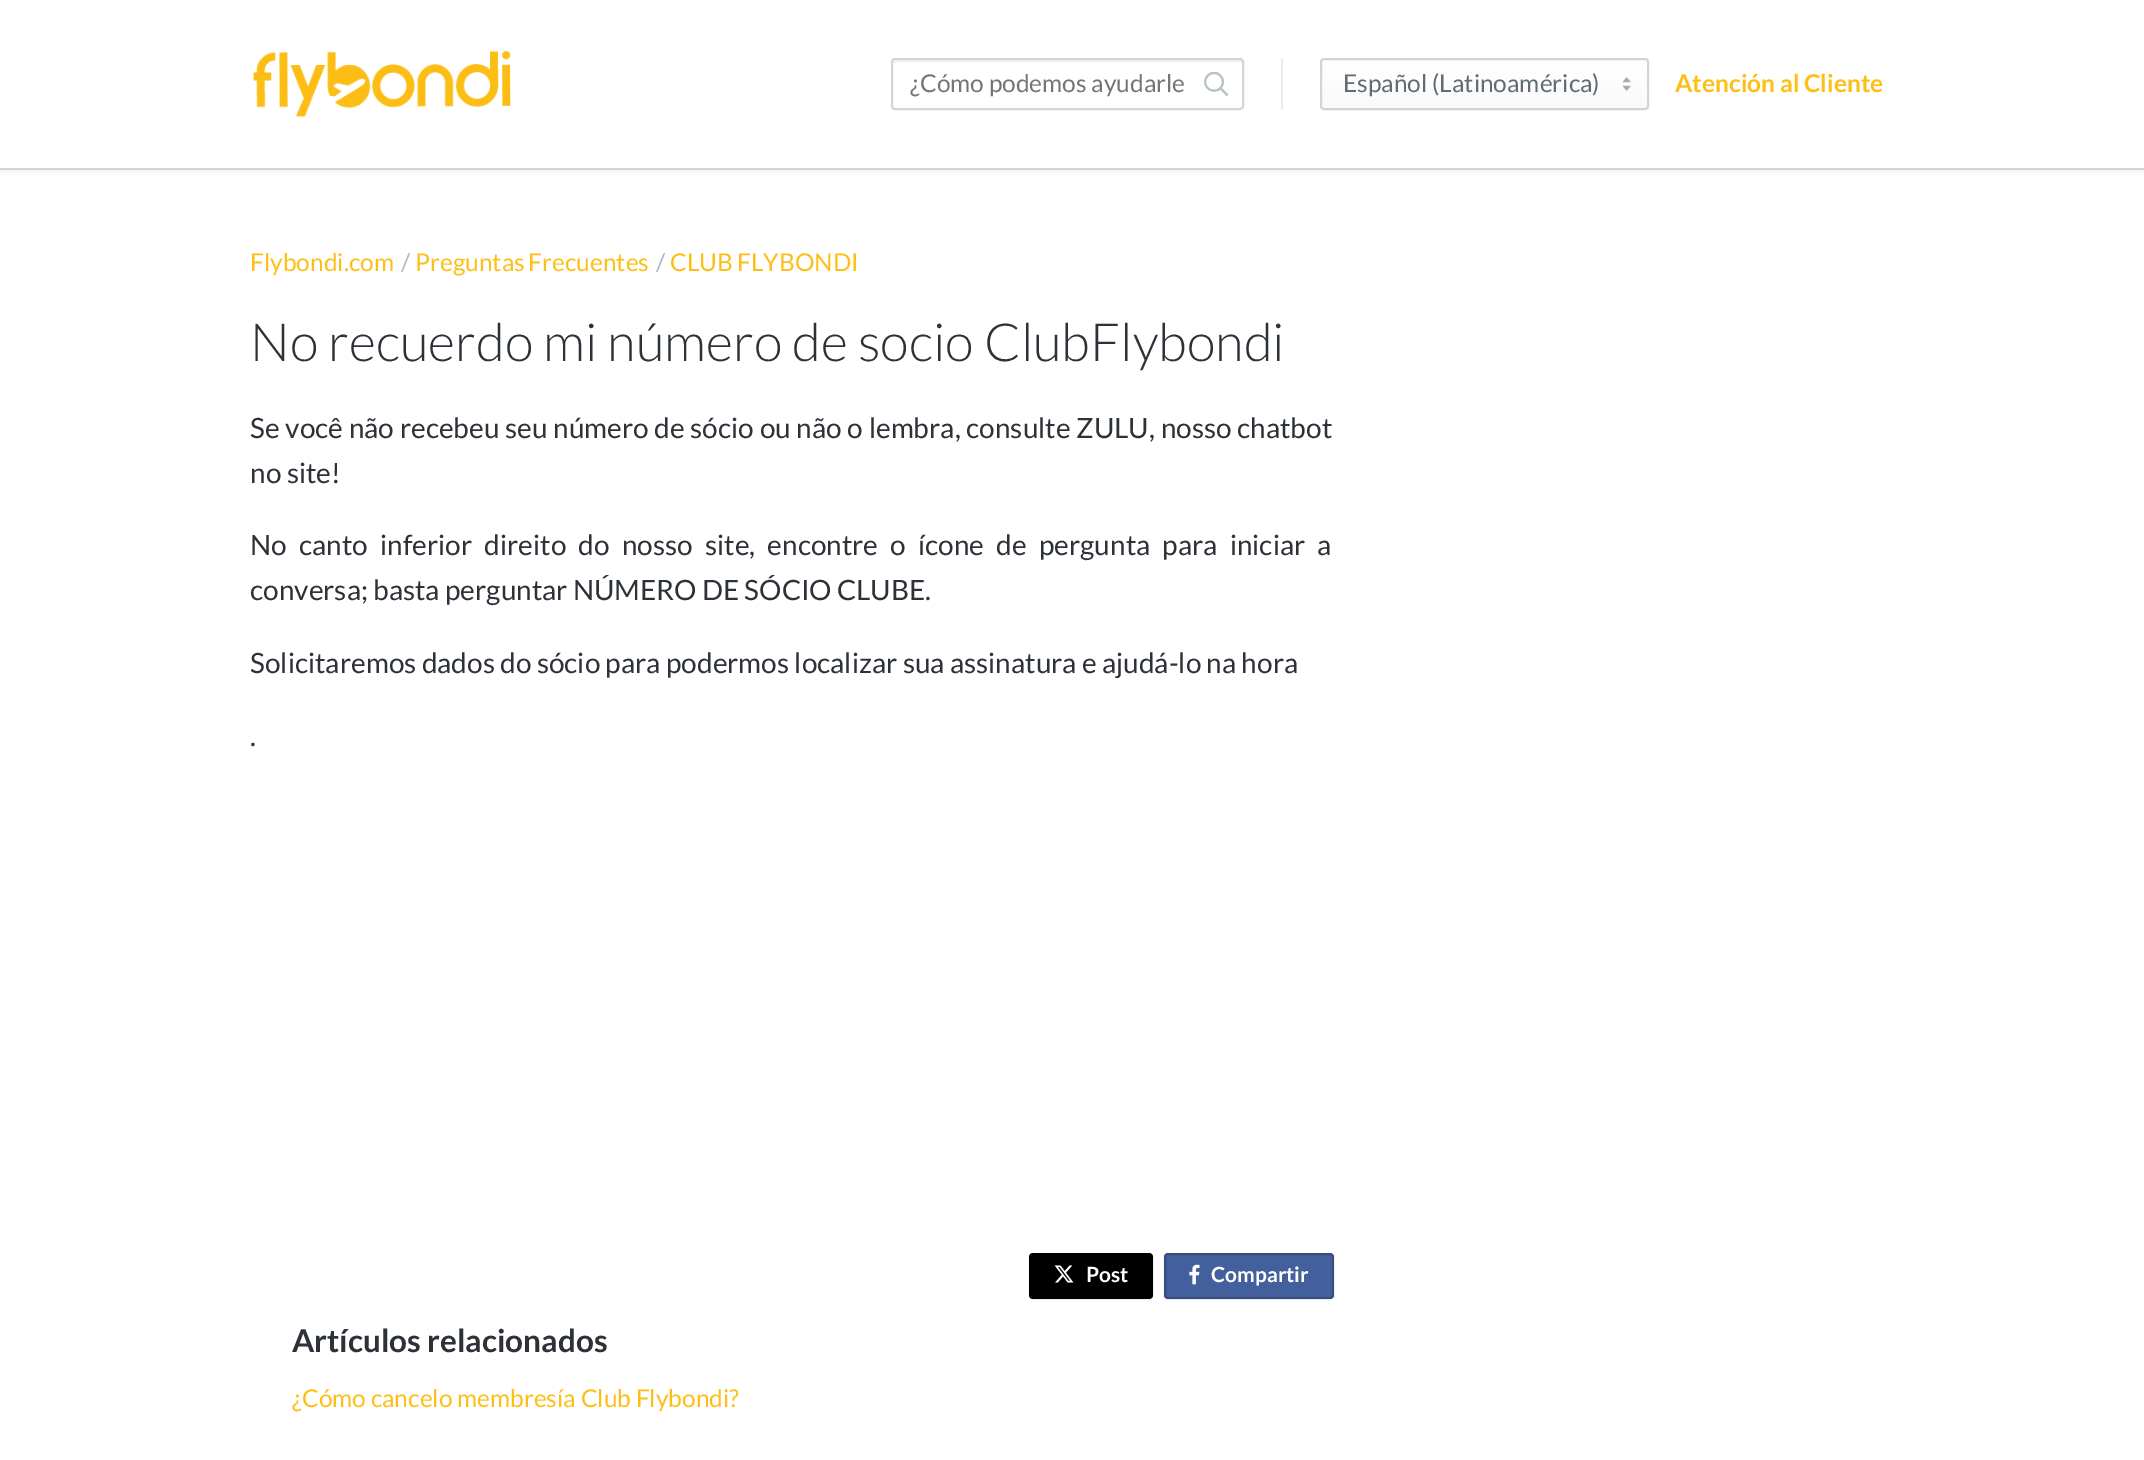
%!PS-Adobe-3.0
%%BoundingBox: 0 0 2144 1460
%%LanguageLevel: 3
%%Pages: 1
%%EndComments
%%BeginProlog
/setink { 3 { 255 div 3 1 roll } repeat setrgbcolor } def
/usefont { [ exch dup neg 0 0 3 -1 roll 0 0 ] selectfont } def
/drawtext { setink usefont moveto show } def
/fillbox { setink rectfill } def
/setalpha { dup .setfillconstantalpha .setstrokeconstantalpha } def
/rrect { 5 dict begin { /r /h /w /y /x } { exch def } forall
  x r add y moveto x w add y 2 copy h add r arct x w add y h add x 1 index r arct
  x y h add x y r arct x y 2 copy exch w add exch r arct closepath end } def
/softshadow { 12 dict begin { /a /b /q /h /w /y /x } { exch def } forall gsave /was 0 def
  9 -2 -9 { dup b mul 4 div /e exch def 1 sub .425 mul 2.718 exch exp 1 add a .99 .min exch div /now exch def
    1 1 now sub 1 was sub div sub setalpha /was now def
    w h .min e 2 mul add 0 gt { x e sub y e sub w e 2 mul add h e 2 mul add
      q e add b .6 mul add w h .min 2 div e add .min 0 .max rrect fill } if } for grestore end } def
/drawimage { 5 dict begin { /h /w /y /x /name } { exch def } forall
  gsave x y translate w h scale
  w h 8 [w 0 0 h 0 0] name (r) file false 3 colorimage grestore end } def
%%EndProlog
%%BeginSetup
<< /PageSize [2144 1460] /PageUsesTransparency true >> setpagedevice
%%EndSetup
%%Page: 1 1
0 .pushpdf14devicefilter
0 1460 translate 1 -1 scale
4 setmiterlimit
0 0 2144 1460 255 255 255 fillbox
0 0 0 setink
0 2 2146 170 0 2 0.06 softshadow
0 0 2144 168 255 255 255 fillbox
0 168 2144 2 209 213 215 fillbox
(assets/img1.rgb) 253 50 258 67 drawimage
1281 58 2 52 235 238 240 fillbox
245 245 245 setink
894 63 moveto 1241 63 lineto 1242 63 1242 64 1242 65 curveto 1242 109 lineto 1243 107 lineto 1243 62 lineto 1243 61 1242 60 1241 60 curveto 895 60 lineto 893 60 893 62 893 63 curveto closepath fill
209 213 215 setink
2 setlinewidth
892 59 351 50 3 rrect stroke
(¿Cómo podemos ayudarle) 910 92 /Lato-Regular 24.5 117 117 117 drawtext
(assets/img2.rgb) 1204 72 25 24 drawimage
gsave
1320 58 329 52 4 rrect clip newpath
gsave 1320 60 moveto 1649 60 lineto 1649 109 lineto 1320 109 lineto closepath clip newpath
<< /ShadingType 2 /ColorSpace /DeviceRGB /Coords [1484 59 1484 109] /Extend [true true] /Function << /FunctionType 2 /Domain [0 1] /C0 [1 1 1] /C1 [0.98 0.98 0.98] /N 1 >> >> shfill grestore
grestore
209 213 215 setink
1321 59 327 50 3 rrect stroke
(Español \(Latinoamérica\)) 1343 92 /Lato-Regular 24.5 95 108 115 drawtext
(assets/img3.rgb) 1622 77 9 14 drawimage
(Atención al Cliente) 1675 92 /Lato-Bold 24.5 253 190 21 drawtext
(Flybondi.com) 250 271 /Lato-Regular 24.5 253 190 21 drawtext
(/) 401 271 /Lato-Regular 24.5 172 185 191 drawtext
253 190 21 setink
415 271 moveto -1 0 32 (Preguntas Frecuentes) widthshow
(/) 656 271 /Lato-Regular 24.5 172 185 191 drawtext
253 190 21 setink
670 271 moveto -1 0 32 (CLUB FLYBONDI) widthshow
(No recuerdo mi número de socio ClubFlybondi) 250 361 /Lato-Light 52.5 45 49 56 drawtext
/Lato-Regular 28 usefont
250 438 moveto 0.3 0 32 (Se você não recebeu seu número de sócio ou não o lembra, consulte ZULU, nosso chatbot) widthshow
(no site!) 250 483 /Lato-Regular 28 45 49 56 drawtext
250 555 moveto 6.75 0 32 (No canto inferior direito do nosso site, encontre o ícone de pergunta para iniciar a) widthshow
250 600 moveto -0.25 0 32 (conversa; basta perguntar NÚMERO DE SÓCIO CLUBE.) widthshow
250 673 moveto -0.1 0 32 (Solicitaremos dados do sócio para podermos localizar sua assinatura e ajudá-lo na hora) widthshow
(.) 250 746 /Lato-Regular 28 45 49 56 drawtext
0 0 0 setink
1029 1255 124 45 4 1 0.05 softshadow
1029 1253 124 46 4 rrect fill
0.15 setalpha
1030 1254 122 44 3 rrect stroke
1 setalpha
(assets/img4.rgb) 1054 1265 20 18 drawimage
(Post) 1086 1282 /Lato-Bold 21 255 255 255 drawtext
0 0 0 setink
1164 1255 170 45 4 1 0.05 softshadow
67 96 156 setink
1164 1253 170 46 4 rrect fill
0.2 setalpha
0 0 0 setink
1165 1254 168 44 3 rrect stroke
1 setalpha
(assets/img5.rgb) 1189 1264 11 21 drawimage
(Compartir) 1211 1282 /Lato-Bold 21 255 255 255 drawtext
(Artículos relacionados) 292 1352 /Lato-Bold 31.5 45 49 56 drawtext
(¿Cómo cancelo membresía Club Flybondi?) 292 1407 /Lato-Regular 24.5 253 190 21 drawtext
.poppdf14devicefilter showpage
%%EOF
